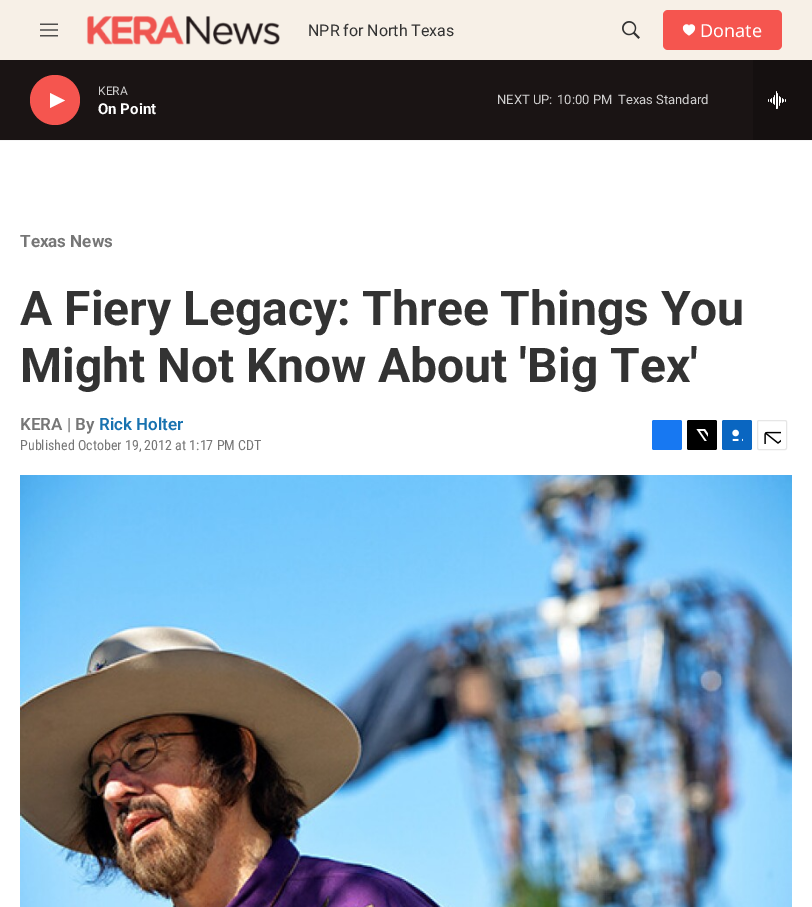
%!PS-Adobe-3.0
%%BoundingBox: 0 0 812 907
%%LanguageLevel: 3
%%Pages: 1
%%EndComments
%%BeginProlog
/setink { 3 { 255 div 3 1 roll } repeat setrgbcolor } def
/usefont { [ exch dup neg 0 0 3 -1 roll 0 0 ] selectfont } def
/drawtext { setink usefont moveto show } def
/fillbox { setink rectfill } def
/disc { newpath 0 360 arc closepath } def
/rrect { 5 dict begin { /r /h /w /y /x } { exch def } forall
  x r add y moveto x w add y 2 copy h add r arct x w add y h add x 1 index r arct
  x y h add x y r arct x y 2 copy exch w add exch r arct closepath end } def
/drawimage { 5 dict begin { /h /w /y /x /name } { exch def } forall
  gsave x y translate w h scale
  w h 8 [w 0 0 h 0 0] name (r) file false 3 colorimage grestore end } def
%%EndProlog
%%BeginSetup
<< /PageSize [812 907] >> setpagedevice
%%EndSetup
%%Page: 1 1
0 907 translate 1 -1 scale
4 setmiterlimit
0 0 812 907 255 255 255 fillbox
0 0 812 60 247 240 231 fillbox
0 140 812 1 245 245 245 fillbox
(assets/img1.rgb) 40 23 18 14 drawimage
(assets/img2.rgb) 86 15 194 31 drawimage
(NPR for North Texas) 308 36 /Roboto-Regular 16 51 51 51 drawtext
(assets/img3.rgb) 622 21 18 18 drawimage
245 85 79 setink
663 10 119 40 5 rrect fill
255 255 255 setink
689 26 moveto 687 21 676.5 28 689 35.5 curveto 701.5 28 691 21 689 26 curveto closepath fill
(Donate) 700 37 /NotoSans-Regular 18 255 255 255 drawtext
0 60 753 80 26 20 20 fillbox
245 85 79 setink
55 100 25 disc fill
255 255 255 setink
50 93 moveto 65 100.5 lineto 50 108 lineto closepath fill
(KERA) 98 95 /Roboto-Regular 12 209 208 208 drawtext
(On Point) 98 114 /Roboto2-Bold 15 255 255 255 drawtext
(NEXT UP:) 497 104 /Roboto-Regular 13 209 208 208 drawtext
(10:00 PM) 557 104 /Roboto-Regular 13 209 208 208 drawtext
(Texas Standard) 618 104 /Roboto-Regular 13 209 208 208 drawtext
753 60 59 80 21 16 16 fillbox
(assets/img4.rgb) 768 91 18 18 drawimage
(Texas News) 20 247 /Roboto-Bold 17 118 118 118 drawtext
(A Fiery Legacy: Three Things You) 20 325 /Roboto-Bold 48 51 51 51 drawtext
(Might Not Know About 'Big Tex') 20 382 /Roboto-Bold 48 51 51 51 drawtext
(KERA | By) 20 430 /Roboto-SemiBold 17 118 118 118 drawtext
(Rick Holter) 99 430 /Roboto-SemiBold 17 23 114 176 drawtext
(Published October 19, 2012 at 1:17 PM CDT) 20 450 /RobotoCondensed-Regular 14 118 118 118 drawtext
23 120 242 setink
652 420 30 30 2 rrect fill
0 0 0 setink
687 420 30 30 2 rrect fill
(assets/img5.rgb) 696 429 12 12 drawimage
10 102 193 setink
722 420 30 30 2 rrect fill
(assets/img6.rgb) 732 429 11 12 drawimage
230 230 230 setink
757.5 420.5 29 29 1.5 rrect stroke
(assets/img7.rgb) 764 431 17 13 drawimage
(assets/img8.rgb) 20 475 772 432 drawimage
showpage
%%EOF
